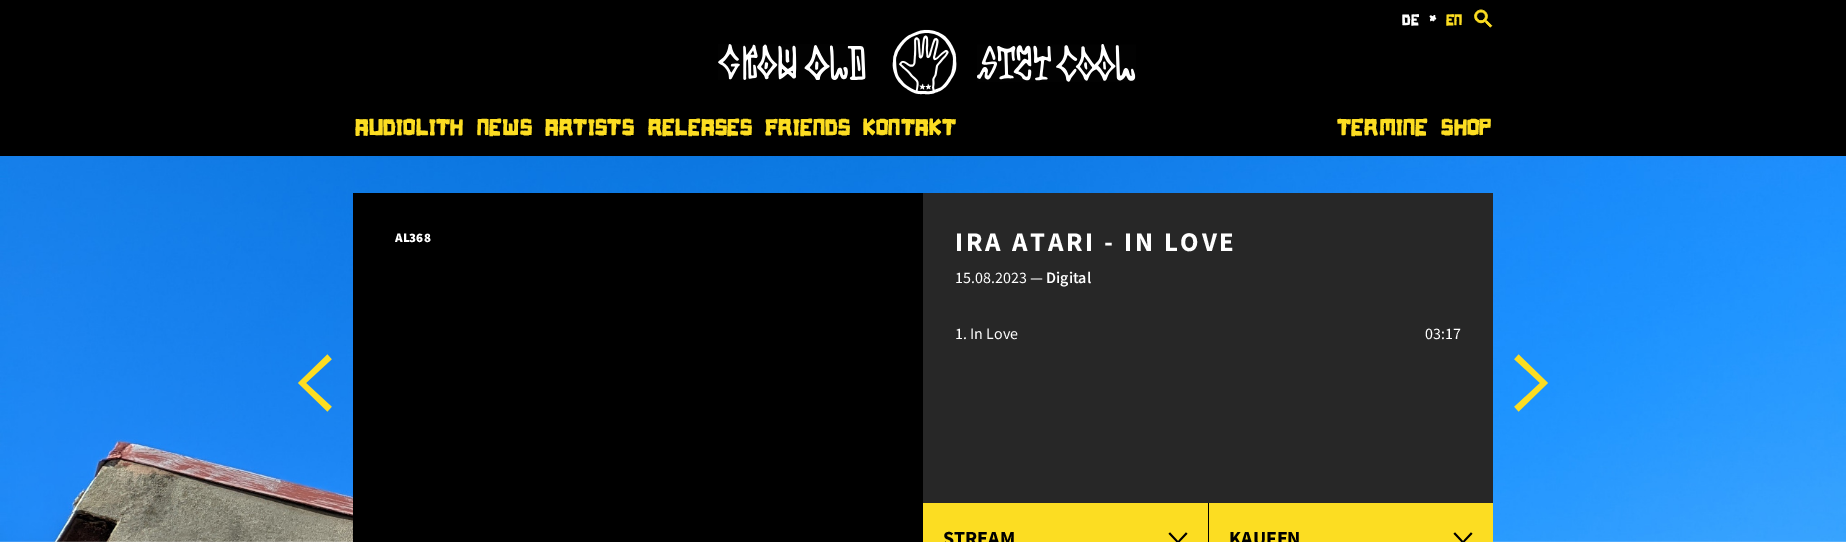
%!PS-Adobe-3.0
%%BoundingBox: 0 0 1846 542
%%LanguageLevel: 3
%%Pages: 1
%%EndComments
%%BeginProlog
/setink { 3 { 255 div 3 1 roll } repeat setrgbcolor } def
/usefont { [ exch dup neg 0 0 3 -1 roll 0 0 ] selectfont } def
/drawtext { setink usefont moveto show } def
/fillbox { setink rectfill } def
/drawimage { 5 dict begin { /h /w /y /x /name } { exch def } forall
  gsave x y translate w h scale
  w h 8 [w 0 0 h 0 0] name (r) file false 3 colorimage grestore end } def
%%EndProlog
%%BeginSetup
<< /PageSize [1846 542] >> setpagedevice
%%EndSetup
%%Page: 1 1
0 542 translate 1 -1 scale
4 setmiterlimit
0 0 1846 542 255 255 255 fillbox
(assets/img1.rgb) 0 156 1846 386 drawimage
0 0 1846 156 0 0 0 fillbox
(assets/img2.rgb) 718 44 148 36 drawimage
(assets/img3.rgb) 892 29 65 66 drawimage
(assets/img4.rgb) 977 44 159 38 drawimage
(de) 1402 25 /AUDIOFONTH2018-Regular 16 255 255 255 drawtext
(*) 1427 25 /AUDIOFONTH2018-Regular 16 255 255 255 drawtext
(en) 1446 25 /AUDIOFONTH2018-Regular 16 252 221 34 drawtext
(assets/img5.rgb) 1474 9 19 19 drawimage
/AUDIOFONTH2018-Regular 24 usefont
355 135 moveto 0.25 0 (Audiolith) ashow
477 135 moveto 0.25 0 (News) ashow
545 135 moveto 0.25 0 (Artists) ashow
648 135 moveto 0.25 0 (Releases) ashow
765 135 moveto 0.25 0 (Friends) ashow
863 135 moveto 0.25 0 (Kontakt) ashow
1337 135 moveto 0.25 0 (Termine) ashow
1441 135 moveto 0.25 0 (Shop) ashow
353 193 570 349 0 0 0 fillbox
(assets/img6.rgb) 298 354 34 58 drawimage
(AL368) 395 242 /SourceSansPro-Black 13 255 255 255 drawtext
923 193 570 310 39 39 39 fillbox
/SourceSansPro-Bold 27 usefont
255 255 255 setink
955 251 moveto 2.75 0 (IRA ATARI - IN LOVE) ashow
(15.08.2023 —) 955 283 /SourceSansPro-Regular 16 255 255 255 drawtext
(Digital) 1046 283 /SourceSansPro-SemiBold 16 255 255 255 drawtext
(1. In Love) 955 339 /SourceSansPro-Regular 16 255 255 255 drawtext
(03:17) 1425 339 /SourceSansPro-Regular 16 255 255 255 drawtext
923 503 285 39 252 221 34 fillbox
(STREAM) 943 545 /SourceSansPro-Bold 20 0 0 0 drawtext
(assets/img7.rgb) 1168 532 20 10 drawimage
1209 503 284 39 252 221 34 fillbox
1208 503 1 39 0 0 0 fillbox
(KAUFEN) 1229 545 /SourceSansPro-Bold 20 0 0 0 drawtext
(assets/img7.rgb) 1453 532 20 10 drawimage
(assets/img8.rgb) 1514 354 34 58 drawimage
showpage
%%EOF
